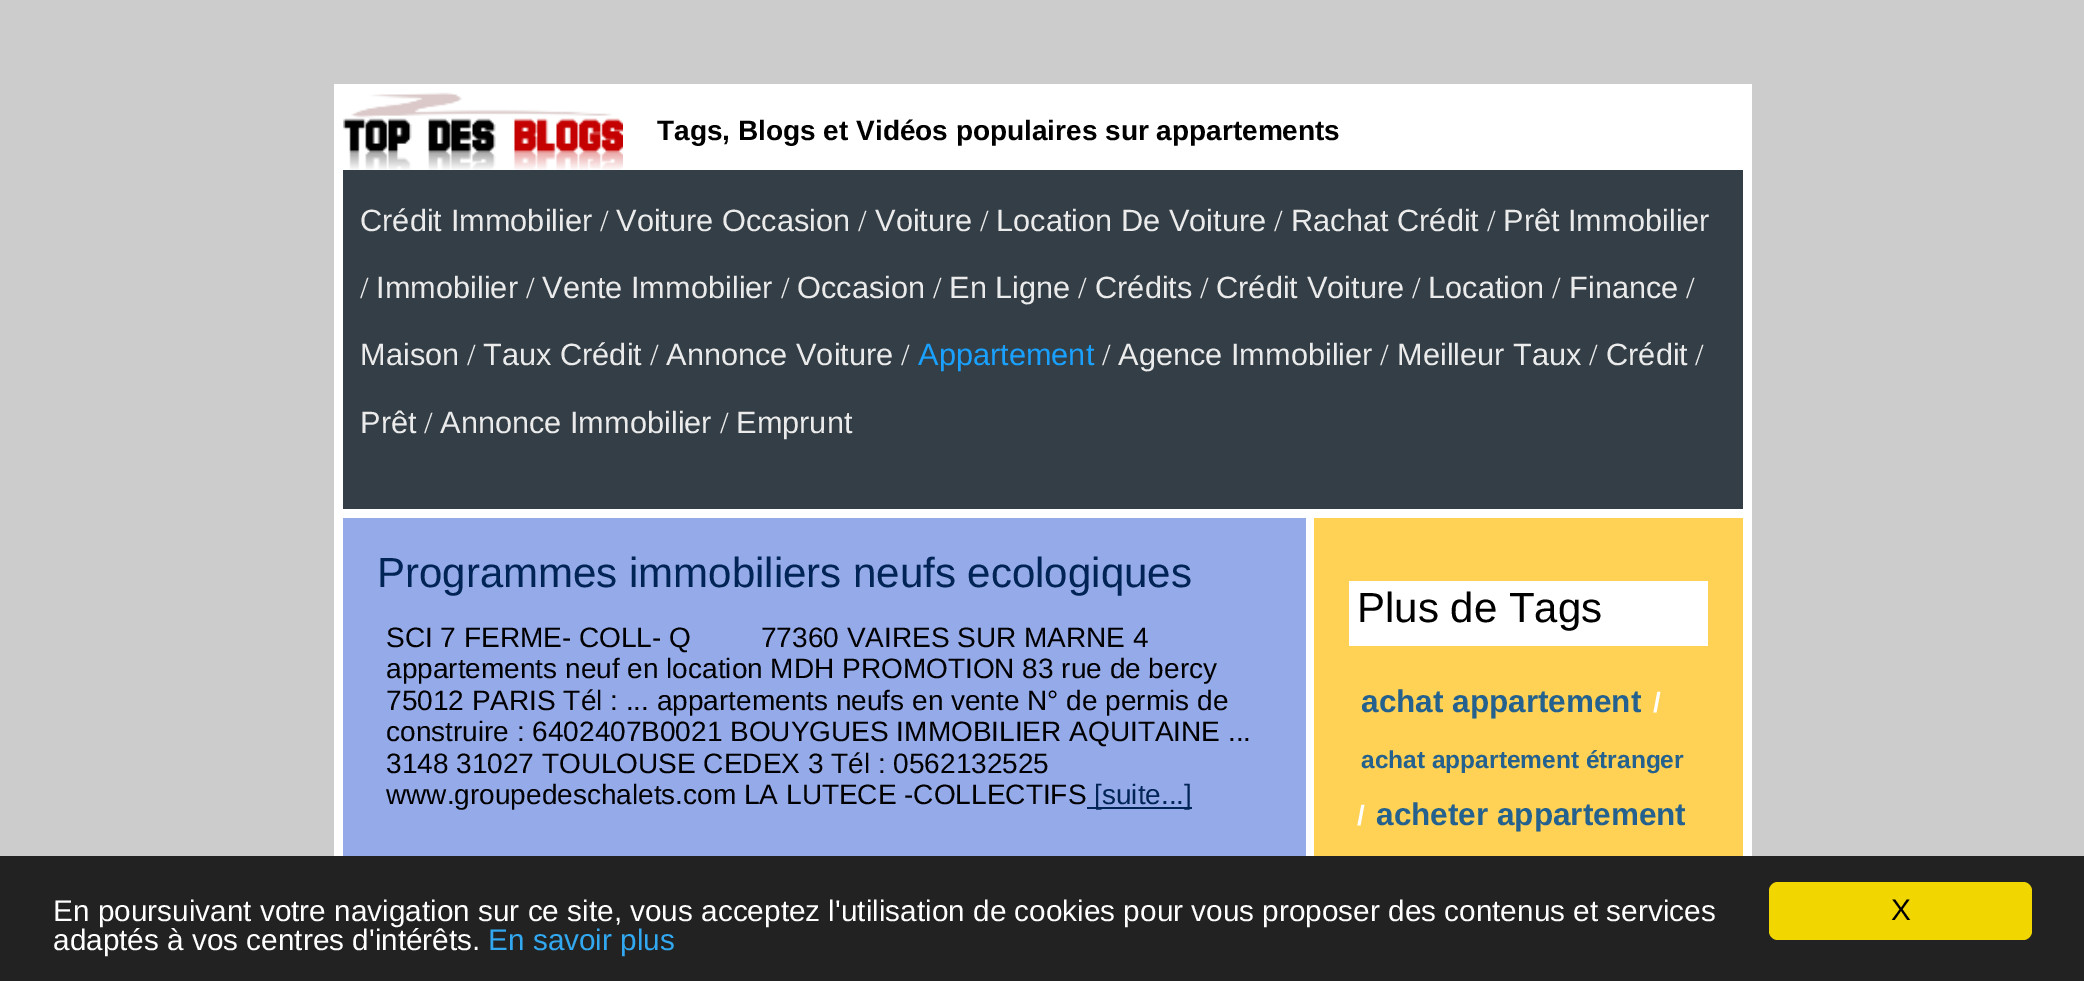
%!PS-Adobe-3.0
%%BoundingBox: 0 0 2084 981
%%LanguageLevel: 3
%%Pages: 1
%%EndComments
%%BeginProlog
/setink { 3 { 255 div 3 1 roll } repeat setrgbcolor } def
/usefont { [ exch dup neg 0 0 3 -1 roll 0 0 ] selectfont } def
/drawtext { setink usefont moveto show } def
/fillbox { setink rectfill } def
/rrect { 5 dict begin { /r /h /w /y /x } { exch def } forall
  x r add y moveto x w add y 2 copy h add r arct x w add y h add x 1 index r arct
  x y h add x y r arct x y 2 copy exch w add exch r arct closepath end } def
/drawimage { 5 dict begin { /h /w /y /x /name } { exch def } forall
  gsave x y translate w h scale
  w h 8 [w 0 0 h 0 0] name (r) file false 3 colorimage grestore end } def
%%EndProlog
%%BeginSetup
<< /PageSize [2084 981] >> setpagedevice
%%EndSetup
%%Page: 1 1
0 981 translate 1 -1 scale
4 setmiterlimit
0 0 2084 981 204 204 204 fillbox
334 84 1418 772 255 255 255 fillbox
(assets/img1.rgb) 343 92 280 78 drawimage
(Tags, Blogs et Vidéos populaires sur appartements) 657 140 /LiberationSans-Bold 28 0 0 0 drawtext
343 170 1400 339 51 62 70 fillbox
(Crédit Immobilier) 360 231 /LiberationSans-Regular 30.75 235 235 235 drawtext
(/) 600 231 /LiberationSerif-Regular 30.75 235 235 235 drawtext
(Voiture Occasion) 616 231 /LiberationSans-Regular 30.75 235 235 235 drawtext
(/) 858 231 /LiberationSerif-Regular 30.75 235 235 235 drawtext
(Voiture) 875 231 /LiberationSans-Regular 30.75 235 235 235 drawtext
(/) 980 231 /LiberationSerif-Regular 30.75 235 235 235 drawtext
(Location De Voiture) 996 231 /LiberationSans-Regular 30.75 235 235 235 drawtext
(/) 1274 231 /LiberationSerif-Regular 30.75 235 235 235 drawtext
(Rachat Crédit) 1291 231 /LiberationSans-Regular 30.75 235 235 235 drawtext
(/) 1487 231 /LiberationSerif-Regular 30.75 235 235 235 drawtext
(Prêt Immobilier) 1503 231 /LiberationSans-Regular 30.75 235 235 235 drawtext
(/) 360 298 /LiberationSerif-Regular 30.75 235 235 235 drawtext
(Immobilier) 376 298 /LiberationSans-Regular 30.75 235 235 235 drawtext
(/) 526 298 /LiberationSerif-Regular 30.75 235 235 235 drawtext
(Vente Immobilier) 542 298 /LiberationSans-Regular 30.75 235 235 235 drawtext
(/) 781 298 /LiberationSerif-Regular 30.75 235 235 235 drawtext
(Occasion) 797 298 /LiberationSans-Regular 30.75 235 235 235 drawtext
(/) 933 298 /LiberationSerif-Regular 30.75 235 235 235 drawtext
(En Ligne) 949 298 /LiberationSans-Regular 30.75 235 235 235 drawtext
(/) 1078 298 /LiberationSerif-Regular 30.75 235 235 235 drawtext
(Crédits) 1095 298 /LiberationSans-Regular 30.75 235 235 235 drawtext
(/) 1200 298 /LiberationSerif-Regular 30.75 235 235 235 drawtext
(Crédit Voiture) 1216 298 /LiberationSans-Regular 30.75 235 235 235 drawtext
(/) 1412 298 /LiberationSerif-Regular 30.75 235 235 235 drawtext
(Location) 1428 298 /LiberationSans-Regular 30.75 235 235 235 drawtext
(/) 1552 298 /LiberationSerif-Regular 30.75 235 235 235 drawtext
(Finance) 1569 298 /LiberationSans-Regular 30.75 235 235 235 drawtext
(/) 1686 298 /LiberationSerif-Regular 30.75 235 235 235 drawtext
(Maison) 360 365 /LiberationSans-Regular 30.75 235 235 235 drawtext
(/) 467 365 /LiberationSerif-Regular 30.75 235 235 235 drawtext
(Taux Crédit) 483 365 /LiberationSans-Regular 30.75 235 235 235 drawtext
(/) 650 365 /LiberationSerif-Regular 30.75 235 235 235 drawtext
(Annonce Voiture) 666 365 /LiberationSans-Regular 30.75 235 235 235 drawtext
(/) 901 365 /LiberationSerif-Regular 30.75 235 235 235 drawtext
(Appartement) 918 365 /LiberationSans-Regular 30.75 26 161 255 drawtext
(/) 1102 365 /LiberationSerif-Regular 30.75 235 235 235 drawtext
(Agence Immobilier) 1118 365 /LiberationSans-Regular 30.75 235 235 235 drawtext
(/) 1380 365 /LiberationSerif-Regular 30.75 235 235 235 drawtext
(Meilleur Taux) 1397 365 /LiberationSans-Regular 30.75 235 235 235 drawtext
(/) 1589 365 /LiberationSerif-Regular 30.75 235 235 235 drawtext
(Crédit) 1606 365 /LiberationSans-Regular 30.75 235 235 235 drawtext
(/) 1695 365 /LiberationSerif-Regular 30.75 235 235 235 drawtext
(Prêt) 360 433 /LiberationSans-Regular 30.75 235 235 235 drawtext
(/) 424 433 /LiberationSerif-Regular 30.75 235 235 235 drawtext
(Annonce Immobilier) 440 433 /LiberationSans-Regular 30.75 235 235 235 drawtext
(/) 720 433 /LiberationSerif-Regular 30.75 235 235 235 drawtext
(Emprunt) 736 433 /LiberationSans-Regular 30.75 235 235 235 drawtext
343 518 963 338 149 170 233 fillbox
(Programmes immobiliers neufs ecologiques) 377 587 /LiberationSans-Regular 42 0 36 85 drawtext
(SCI 7 FERME- COLL- Q         77360 VAIRES SUR MARNE 4) 386 647 /LiberationSans-Regular 28 0 0 0 drawtext
(appartements neuf en location MDH PROMOTION 83 rue de bercy) 386 678 /LiberationSans-Regular 28 0 0 0 drawtext
(75012 PARIS Tél : ... appartements neufs en vente N° de permis de) 386 710 /LiberationSans-Regular 28 0 0 0 drawtext
(construire : 6402407B0021 BOUYGUES IMMOBILIER AQUITAINE ...) 386 741 /LiberationSans-Regular 28 0 0 0 drawtext
(3148 31027 TOULOUSE CEDEX 3 Tél : 0562132525) 386 773 /LiberationSans-Regular 28 0 0 0 drawtext
(www.groupedeschalets.com LA LUTECE -COLLECTIFS) 386 804 /LiberationSans-Regular 28 0 0 0 drawtext
1087 807 105 2 0 36 85 fillbox
([suite...]) 1094 804 /LiberationSans-Regular 28 0 36 85 drawtext
1314 518 429 338 255 209 84 fillbox
1349 581 359 65 255 255 255 fillbox
(Plus de Tags) 1357 622 /LiberationSans-Regular 42 0 0 0 drawtext
(achat appartement) 1361 712 /LiberationSans-Bold 31.5 36 97 142 drawtext
(/) 1653 712 /LiberationSans-Bold 28 255 255 255 drawtext
(achat appartement étranger) 1361 768 /LiberationSans-Bold 24.5 36 97 142 drawtext
(/) 1357 825 /LiberationSans-Bold 28 255 255 255 drawtext
(acheter appartement) 1376 825 /LiberationSans-Bold 31.5 36 97 142 drawtext
0 856 2084 125 34 34 34 fillbox
(En poursuivant votre navigation sur ce site, vous acceptez l'utilisation de cookies pour vous proposer des contenus et services) 53 921 /LiberationSans-Regular 29.75 255 255 255 drawtext
(adaptés à vos centres d'intérêts.) 53 950 /LiberationSans-Regular 29.75 255 255 255 drawtext
(En savoir plus) 488 950 /LiberationSans-Regular 29.75 49 168 240 drawtext
241 214 0 setink
1769 882 263 58 9 rrect fill
(X) 1891 920 /LiberationSans-Regular 29.75 0 0 0 drawtext
showpage
%%EOF
